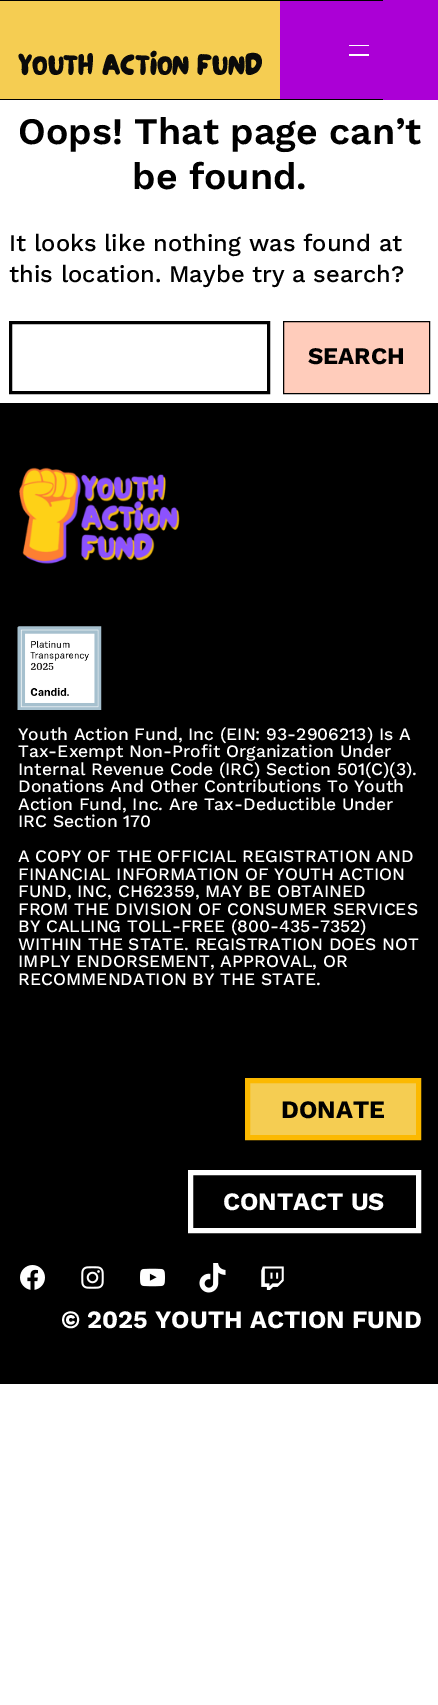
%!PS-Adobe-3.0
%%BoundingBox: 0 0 438 1705
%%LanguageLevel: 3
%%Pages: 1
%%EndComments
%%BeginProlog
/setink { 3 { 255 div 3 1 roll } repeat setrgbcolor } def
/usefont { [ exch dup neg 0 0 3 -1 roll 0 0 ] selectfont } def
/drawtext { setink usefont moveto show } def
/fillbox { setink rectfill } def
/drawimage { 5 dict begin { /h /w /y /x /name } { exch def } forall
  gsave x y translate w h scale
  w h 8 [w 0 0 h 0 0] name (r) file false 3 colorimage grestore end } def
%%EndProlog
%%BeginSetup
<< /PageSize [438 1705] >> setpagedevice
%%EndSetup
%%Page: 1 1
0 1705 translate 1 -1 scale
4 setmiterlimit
0 0 438 1705 255 255 255 fillbox
280 0 158 100 171 0 214 fillbox
0 0 383 1 0 0 0 fillbox
0 1 280 98 245 205 82 fillbox
(YOUTH ACTION FUND) 18 75 /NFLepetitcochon-Regular 31.25 10 10 10 drawtext
349 45 20 1 255 255 255 fillbox
349 54 20 2 255 255 255 fillbox
0 99 383 1 0 0 0 fillbox
(Oops! That page can’t) 18 144 /WorkSans-SemiBold 37.5 0 0 0 drawtext
(be found.) 132 189 /WorkSans-SemiBold 37.5 0 0 0 drawtext
(It looks like nothing was found at) 9 251 /WorkSans-Medium 23.75 0 0 0 drawtext
(this location. Maybe try a search?) 9 282 /WorkSans-Medium 23.75 0 0 0 drawtext
3 setlinewidth
10.5 322.5 258 70 rectstroke
255 204 187 setink
283.5 321.5 moveto 429.5 321.5 lineto 429.5 393.5 lineto 283.5 393.5 lineto closepath gsave fill grestore
0 0 0 setink
1 setlinewidth
stroke
(SEARCH) 308 364 /WorkSans-Bold 23.75 0 0 0 drawtext
0 403 438 981 0 0 0 fillbox
(assets/img1.rgb) 19 467 161 97 drawimage
(assets/img2.rgb) 17 626 85 84 drawimage
(Youth Action Fund, Inc \(EIN: 93-2906213\) Is A) 18 740 /WorkSans-Medium 17.5 255 255 255 drawtext
(Tax-Exempt Non-Profit Organization Under) 18 757 /WorkSans-Medium 17.5 255 255 255 drawtext
(Internal Revenue Code \(IRC\) Section 501\(C\)\(3\).) 18 775 /WorkSans-Medium 17.5 255 255 255 drawtext
(Donations And Other Contributions To Youth) 18 792 /WorkSans-Medium 17.5 255 255 255 drawtext
(Action Fund, Inc. Are Tax-Deductible Under) 18 810 /WorkSans-Medium 17.5 255 255 255 drawtext
(IRC Section 170) 18 827 /WorkSans-Medium 17.5 255 255 255 drawtext
(A COPY OF THE OFFICIAL REGISTRATION AND) 18 862 /WorkSans-Medium 17.5 255 255 255 drawtext
(FINANCIAL INFORMATION OF YOUTH ACTION) 18 880 /WorkSans-Medium 17.5 255 255 255 drawtext
(FUND, INC, CH62359, MAY BE OBTAINED) 18 897 /WorkSans-Medium 17.5 255 255 255 drawtext
(FROM THE DIVISION OF CONSUMER SERVICES) 18 915 /WorkSans-Medium 17.5 255 255 255 drawtext
(BY CALLING TOLL-FREE \(800-435-7352\)) 18 932 /WorkSans-Medium 17.5 255 255 255 drawtext
(WITHIN THE STATE. REGISTRATION DOES NOT) 18 950 /WorkSans-Medium 17.5 255 255 255 drawtext
(IMPLY ENDORSEMENT, APPROVAL, OR) 18 967 /WorkSans-Medium 17.5 255 255 255 drawtext
(RECOMMENDATION BY THE STATE.) 18 985 /WorkSans-Medium 17.5 255 255 255 drawtext
245 205 82 setink
247.5 1080.5 moveto 418.5 1080.5 lineto 418.5 1137.5 lineto 247.5 1137.5 lineto closepath gsave fill grestore
252 185 0 setink
5 setlinewidth
stroke
(DONATE) 281 1118 /WorkSans-Bold 25 0 0 0 drawtext
255 255 255 setink
190.5 1172.5 228 58 rectstroke
(CONTACT US) 223 1210 /WorkSans-Bold 25 255 255 255 drawtext
(assets/img3.rgb) 20 1265 25 25 drawimage
(assets/img4.rgb) 81 1266 23 23 drawimage
(assets/img5.rgb) 140 1268 25 19 drawimage
(assets/img6.rgb) 199 1263 27 30 drawimage
(assets/img7.rgb) 261 1266 23 24 drawimage
(© 2025 YOUTH ACTION FUND) 61 1328 /WorkSans-Bold 25 255 255 255 drawtext
showpage
%%EOF
